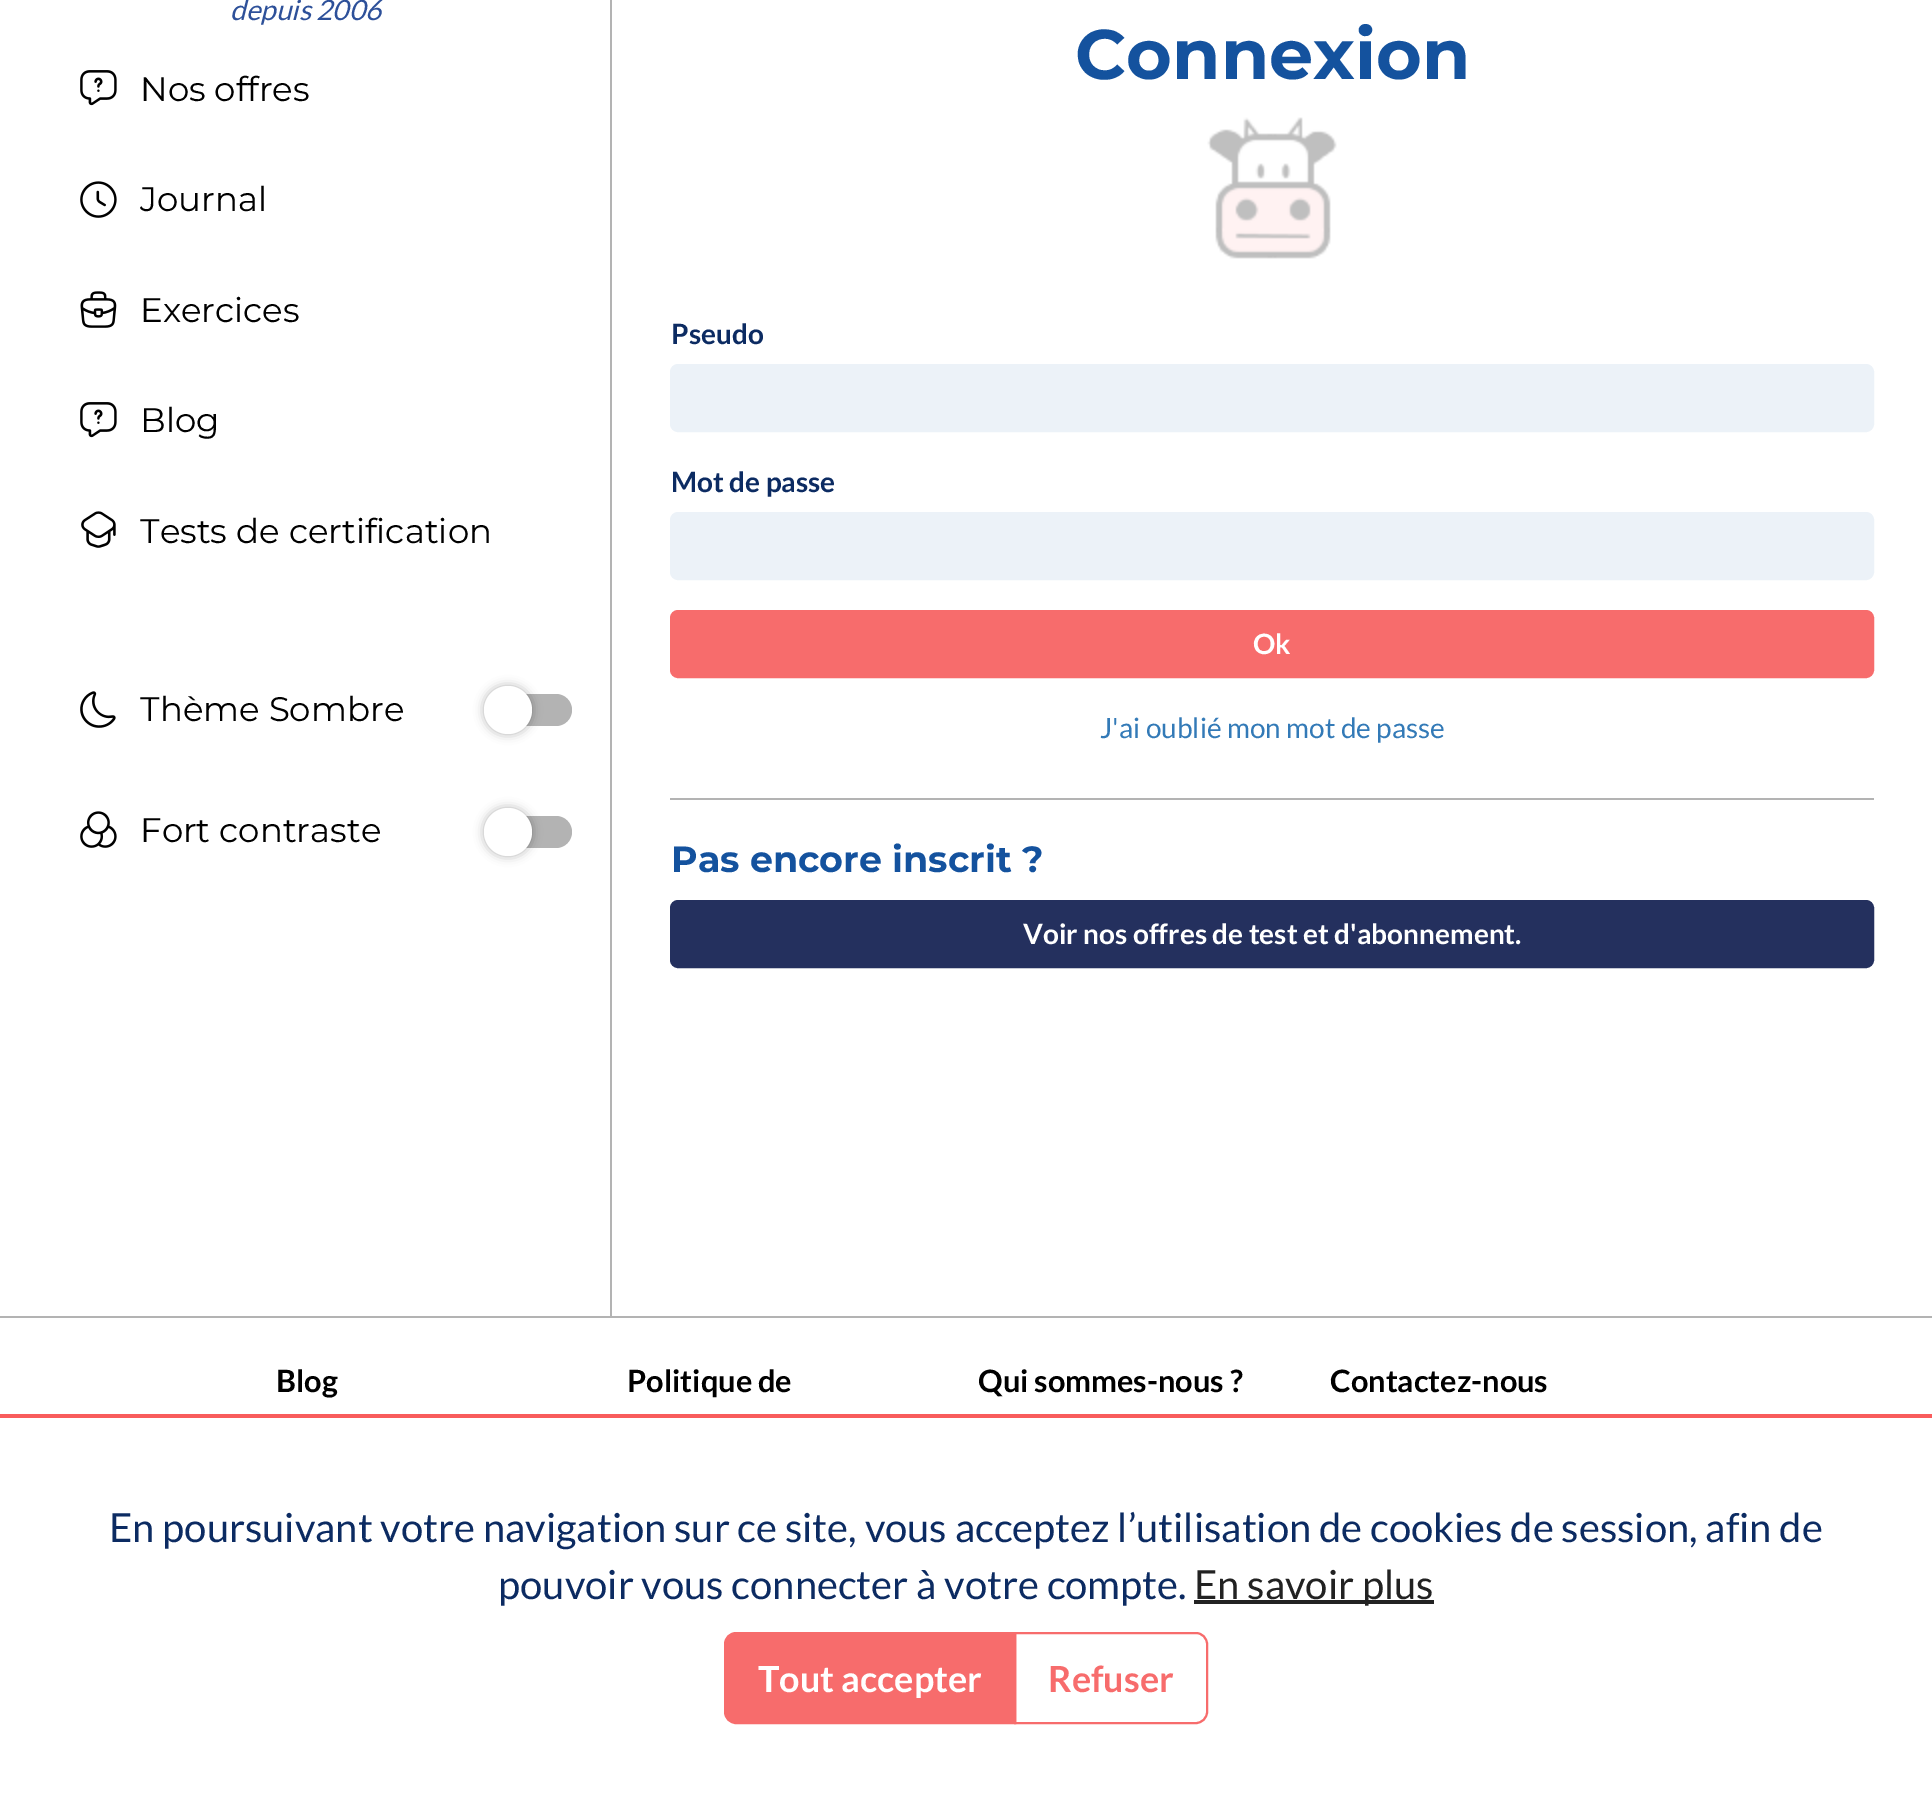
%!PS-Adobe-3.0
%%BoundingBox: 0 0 1932 1804
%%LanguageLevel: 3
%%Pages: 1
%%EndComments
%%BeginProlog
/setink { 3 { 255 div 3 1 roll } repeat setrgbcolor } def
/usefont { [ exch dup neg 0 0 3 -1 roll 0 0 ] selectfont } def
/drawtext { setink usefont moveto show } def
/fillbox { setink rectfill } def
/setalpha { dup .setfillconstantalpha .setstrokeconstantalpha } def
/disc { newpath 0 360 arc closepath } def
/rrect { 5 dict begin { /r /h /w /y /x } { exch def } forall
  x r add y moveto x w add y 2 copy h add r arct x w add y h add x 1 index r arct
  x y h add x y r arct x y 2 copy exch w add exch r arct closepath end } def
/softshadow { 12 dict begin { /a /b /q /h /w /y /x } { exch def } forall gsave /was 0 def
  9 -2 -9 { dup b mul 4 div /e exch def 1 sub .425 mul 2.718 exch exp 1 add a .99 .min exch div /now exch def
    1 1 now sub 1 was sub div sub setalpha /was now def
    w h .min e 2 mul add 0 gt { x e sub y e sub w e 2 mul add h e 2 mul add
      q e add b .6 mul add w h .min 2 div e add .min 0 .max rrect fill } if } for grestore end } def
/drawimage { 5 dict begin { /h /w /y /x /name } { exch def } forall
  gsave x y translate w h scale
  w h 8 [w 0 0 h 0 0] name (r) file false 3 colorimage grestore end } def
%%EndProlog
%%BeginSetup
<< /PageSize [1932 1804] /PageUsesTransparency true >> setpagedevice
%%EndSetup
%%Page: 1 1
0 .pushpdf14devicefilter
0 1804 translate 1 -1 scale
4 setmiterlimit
0 0 1932 1804 255 255 255 fillbox
610 0 2 1316 179 179 179 fillbox
(depuis 2006) 230 20 /Lato-Italic 28 45 80 153 drawtext
(assets/img1.rgb) 80 70 37 36 drawimage
(Nos offres) 140 101 /Montserrat-Regular 34 0 0 0 drawtext
(assets/img2.rgb) 80 181 37 37 drawimage
(Journal) 140 211 /Montserrat-Regular 34 0 0 0 drawtext
(assets/img3.rgb) 80 291 37 37 drawimage
(Exercices) 140 322 /Montserrat-Regular 34 0 0 0 drawtext
(assets/img1.rgb) 80 402 37 36 drawimage
(Blog) 140 432 /Montserrat-Regular 34 0 0 0 drawtext
(assets/img4.rgb) 81 511 35 37 drawimage
(Tests de certification) 140 543 /Montserrat-Regular 34 0 0 0 drawtext
(assets/img5.rgb) 80 691 36 37 drawimage
(Thème Sombre) 140 721 /Montserrat-Regular 34 0 0 0 drawtext
179 179 179 setink
492 694 80 32 16 rrect fill
0 0 0 setink
484 686 48 48 24 5 0.3 softshadow
255 255 255 setink
508 710 24 disc fill
(assets/img6.rgb) 80 811 37 37 drawimage
(Fort contraste) 140 842 /Montserrat-Regular 34 0 0 0 drawtext
179 179 179 setink
492 816 80 32 16 rrect fill
0 0 0 setink
484 808 48 48 24 5 0.3 softshadow
255 255 255 setink
508 832 24 disc fill
(Connexion) 1075 79 /Montserrat-Bold 70 20 82 158 drawtext
(assets/img7.rgb) 1207 117 130 142 drawimage
(Pseudo) 671 344 /Lato-Bold 28 12 43 98 drawtext
236 242 248 setink
671 365 1202 66 7 rrect gsave fill grestore
2 setlinewidth
stroke
(Mot de passe) 671 492 /Lato-Bold 28 12 43 98 drawtext
236 242 248 setink
671 513 1202 66 7 rrect gsave fill grestore
stroke
247 108 108 setink
671 611 1202 66 7 rrect gsave fill grestore
stroke
(Ok) 1253 654 /Lato-Bold 28 255 255 255 drawtext
(J'ai oublié mon mot de passe) 1100 738 /Lato-Regular 28 51 122 183 drawtext
670 798 1204 2 179 179 179 fillbox
(Pas encore inscrit ?) 671 872 /Montserrat-Bold 36.4 20 82 158 drawtext
36 48 94 setink
671 901 1202 66 7 rrect gsave fill grestore
stroke
(Voir nos offres de test et d'abonnement.) 1023 944 /Lato-Bold 28 255 255 255 drawtext
0 1316 1932 2 179 179 179 fillbox
(Blog) 276 1392 /Lato-Bold 30.75 0 0 0 drawtext
(Politique de) 627 1392 /Lato-Bold 30.75 0 0 0 drawtext
(Qui sommes-nous ?) 978 1392 /Lato-Bold 30.75 0 0 0 drawtext
(Contactez-nous) 1330 1392 /Lato-Bold 30.75 0 0 0 drawtext
0 1414 1932 4 249 92 92 fillbox
(En poursuivant votre navigation sur ce site, vous acceptez l’utilisation de cookies de session, afin de) 109 1542 /Lato-Regular 40 12 43 98 drawtext
(pouvoir vous connecter à votre compte.) 498 1599 /Lato-Regular 40 12 43 98 drawtext
1194 1600 240 4 34 34 34 fillbox
(En savoir plus) 1194 1599 /Lato-Regular 40 34 34 34 drawtext
247 108 108 setink
736 1633 moveto 1015 1633 lineto 1015 1723 lineto 736 1723 lineto 730 1723 725 1718 725 1712 curveto 725 1644 lineto 725 1638 730 1633 736 1633 curveto closepath gsave fill grestore
stroke
(Tout accepter) 758 1692 /Lato-Bold 36 255 255 255 drawtext
247 108 108 setink
1015 1633 moveto 1196 1633 lineto 1202 1633 1207 1638 1207 1644 curveto 1207 1712 lineto 1207 1718 1202 1723 1196 1723 curveto 1015 1723 lineto closepath stroke
(Refuser) 1048 1692 /Lato-Bold 36 247 108 108 drawtext
.poppdf14devicefilter showpage
%%EOF
